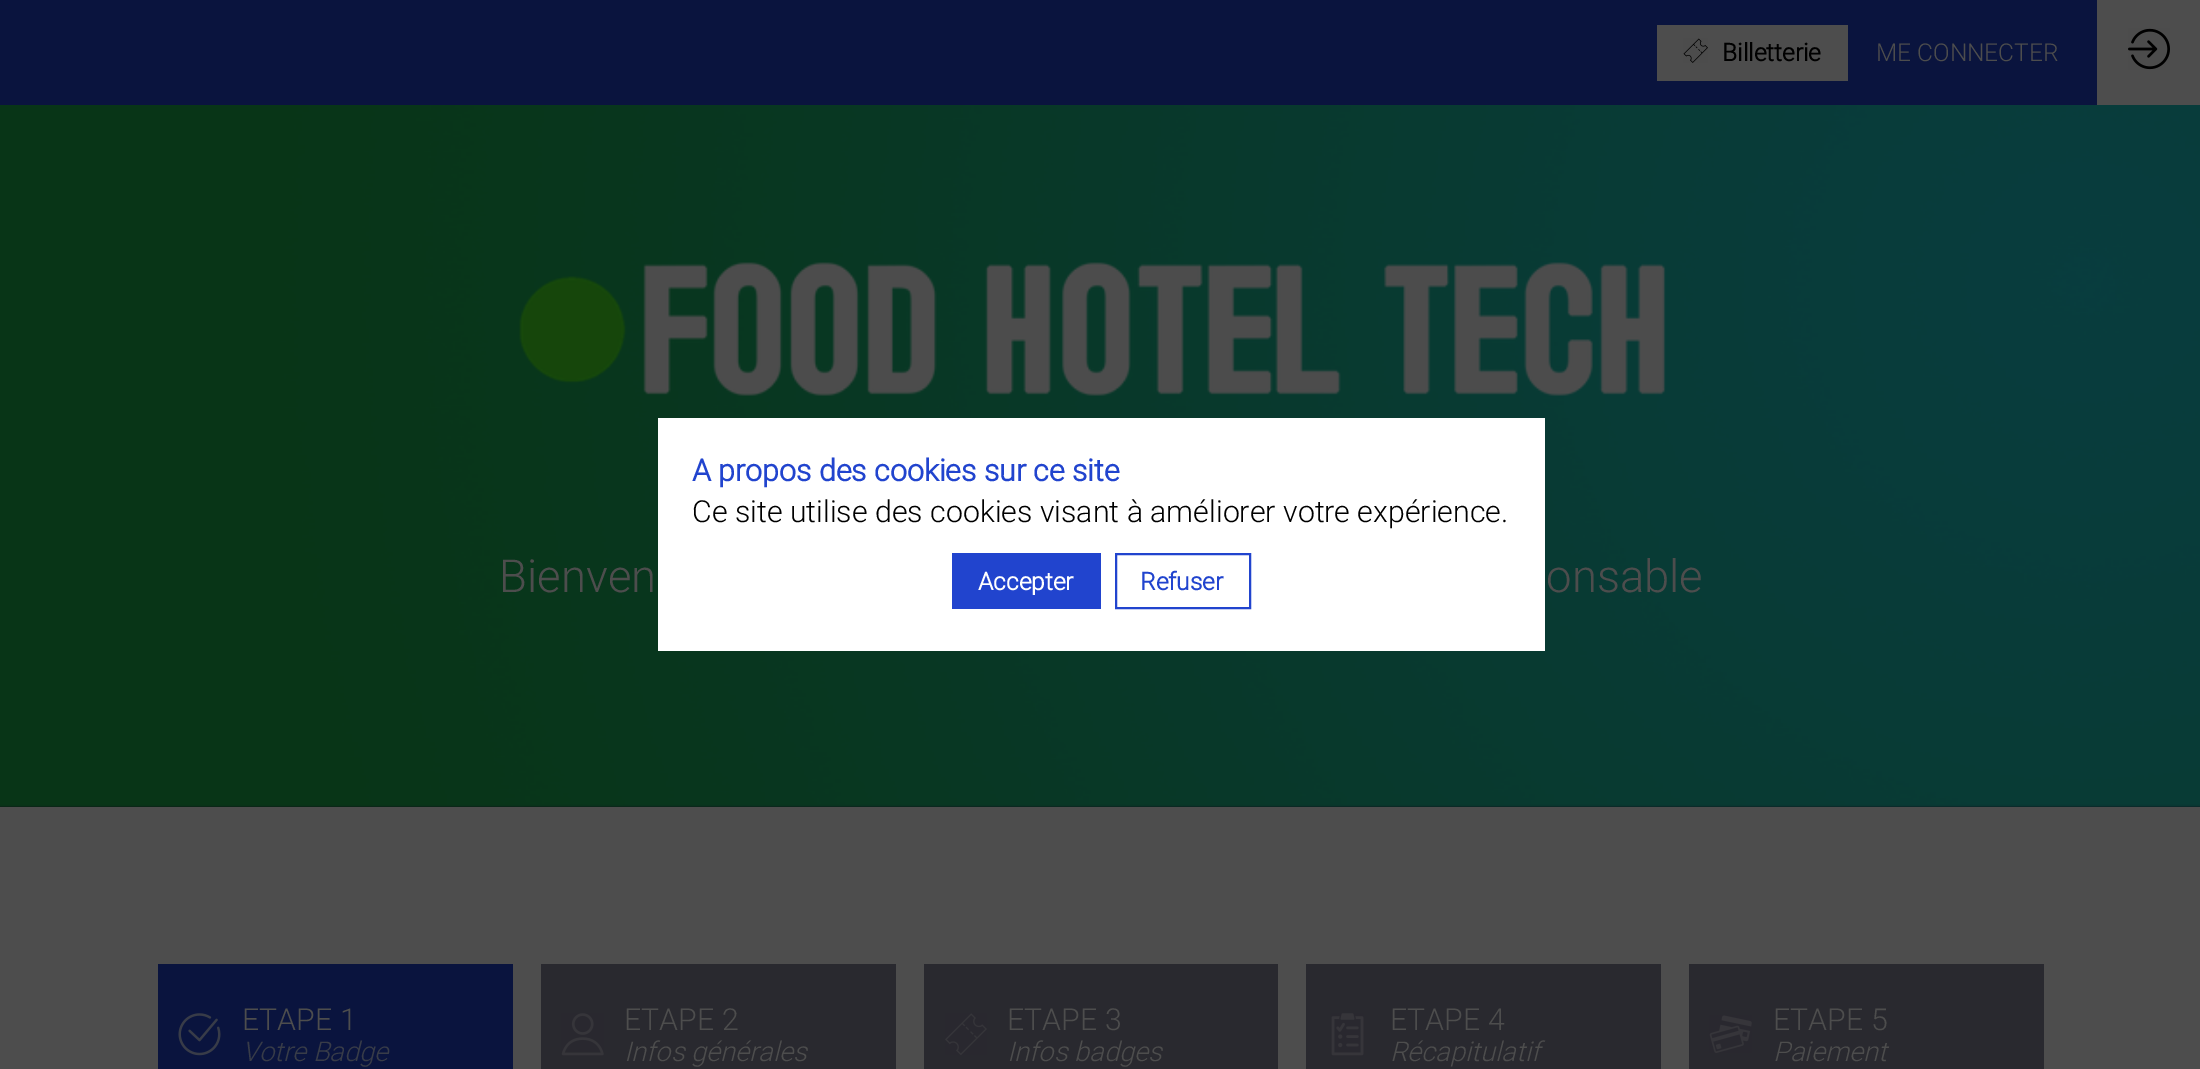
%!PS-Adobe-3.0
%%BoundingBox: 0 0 2200 1069
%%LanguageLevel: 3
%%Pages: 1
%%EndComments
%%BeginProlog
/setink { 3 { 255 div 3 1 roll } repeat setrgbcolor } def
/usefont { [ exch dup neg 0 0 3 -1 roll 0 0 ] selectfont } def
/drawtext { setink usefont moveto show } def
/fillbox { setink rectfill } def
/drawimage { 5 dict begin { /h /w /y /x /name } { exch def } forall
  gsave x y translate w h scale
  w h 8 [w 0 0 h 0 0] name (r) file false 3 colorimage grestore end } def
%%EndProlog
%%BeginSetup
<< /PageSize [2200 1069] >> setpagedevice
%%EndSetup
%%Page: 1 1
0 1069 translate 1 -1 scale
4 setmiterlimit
0 0 2200 1069 10 20 62 fillbox
1657 25 191 56 77 77 77 fillbox
(assets/img1.rgb) 1683 38 25 25 drawimage
(Billetterie) 1722 61 /Roboto-Bold 24.5 0 0 0 drawtext
(ME CONNECTER) 1876 61 /Roboto-Light 24.5 77 77 77 drawtext
2097 0 103 105 77 77 77 fillbox
(assets/img2.rgb) 2128 28 42 42 drawimage
0 804 2200 3 13 11 24 fillbox
(assets/img3.rgb) 0 105 2200 702 drawimage
(assets/img4.rgb) 519 262 1147 134 drawimage
(Bienven) 499 592 /Roboto-Light 45.5 77 77 77 drawtext
(onsable) 1546 592 /Roboto-Light 45.5 77 77 77 drawtext
0 807 2200 262 77 77 77 fillbox
158 964 355 105 10 20 62 fillbox
(assets/img5.rgb) 178 1013 43 43 drawimage
(ETAPE 1) 242 1030 /Roboto-Light 30.3 77 77 77 drawtext
(Votre Badge) 242 1061 /Roboto-LightItalic 27.25 56 60 72 drawtext
541 964 355 105 41 41 47 fillbox
(assets/img6.rgb) 561 1013 43 43 drawimage
(ETAPE 2) 624 1030 /Roboto-Light 30.3 77 77 77 drawtext
(Infos générales) 624 1061 /Roboto-LightItalic 27.25 77 77 77 drawtext
924 964 354 105 41 41 47 fillbox
(assets/img7.rgb) 945 1013 42 42 drawimage
(ETAPE 3) 1007 1030 /Roboto-Light 30.3 77 77 77 drawtext
(Infos badges) 1007 1061 /Roboto-LightItalic 27.25 77 77 77 drawtext
1306 964 355 105 41 41 47 fillbox
(assets/img8.rgb) 1331 1013 33 43 drawimage
(ETAPE 4) 1390 1030 /Roboto-Light 30.3 77 77 77 drawtext
(Récapitulatif) 1390 1061 /Roboto-LightItalic 27.25 77 77 77 drawtext
1689 964 355 105 41 41 47 fillbox
(assets/img9.rgb) 1709 1015 43 38 drawimage
(ETAPE 5) 1773 1030 /Roboto-Light 30.3 77 77 77 drawtext
(Paiement) 1773 1061 /Roboto-LightItalic 27.25 77 77 77 drawtext
658 418 887 233 255 255 255 fillbox
(A propos des cookies sur ce site) 692 481 /Roboto-Bold 30.3 33 68 206 drawtext
(Ce site utilise des cookies visant à améliorer votre expérience.) 692 522 /Roboto-Light 30.3 0 0 0 drawtext
952 553 149 56 33 68 206 fillbox
(Accepter) 978 590 /Roboto-Bold 24.5 255 255 255 drawtext
33 68 206 setink
2 setlinewidth
1116 554 134 54 rectstroke
(Refuser) 1140 590 /Roboto-Bold 24.5 33 68 206 drawtext
showpage
%%EOF
